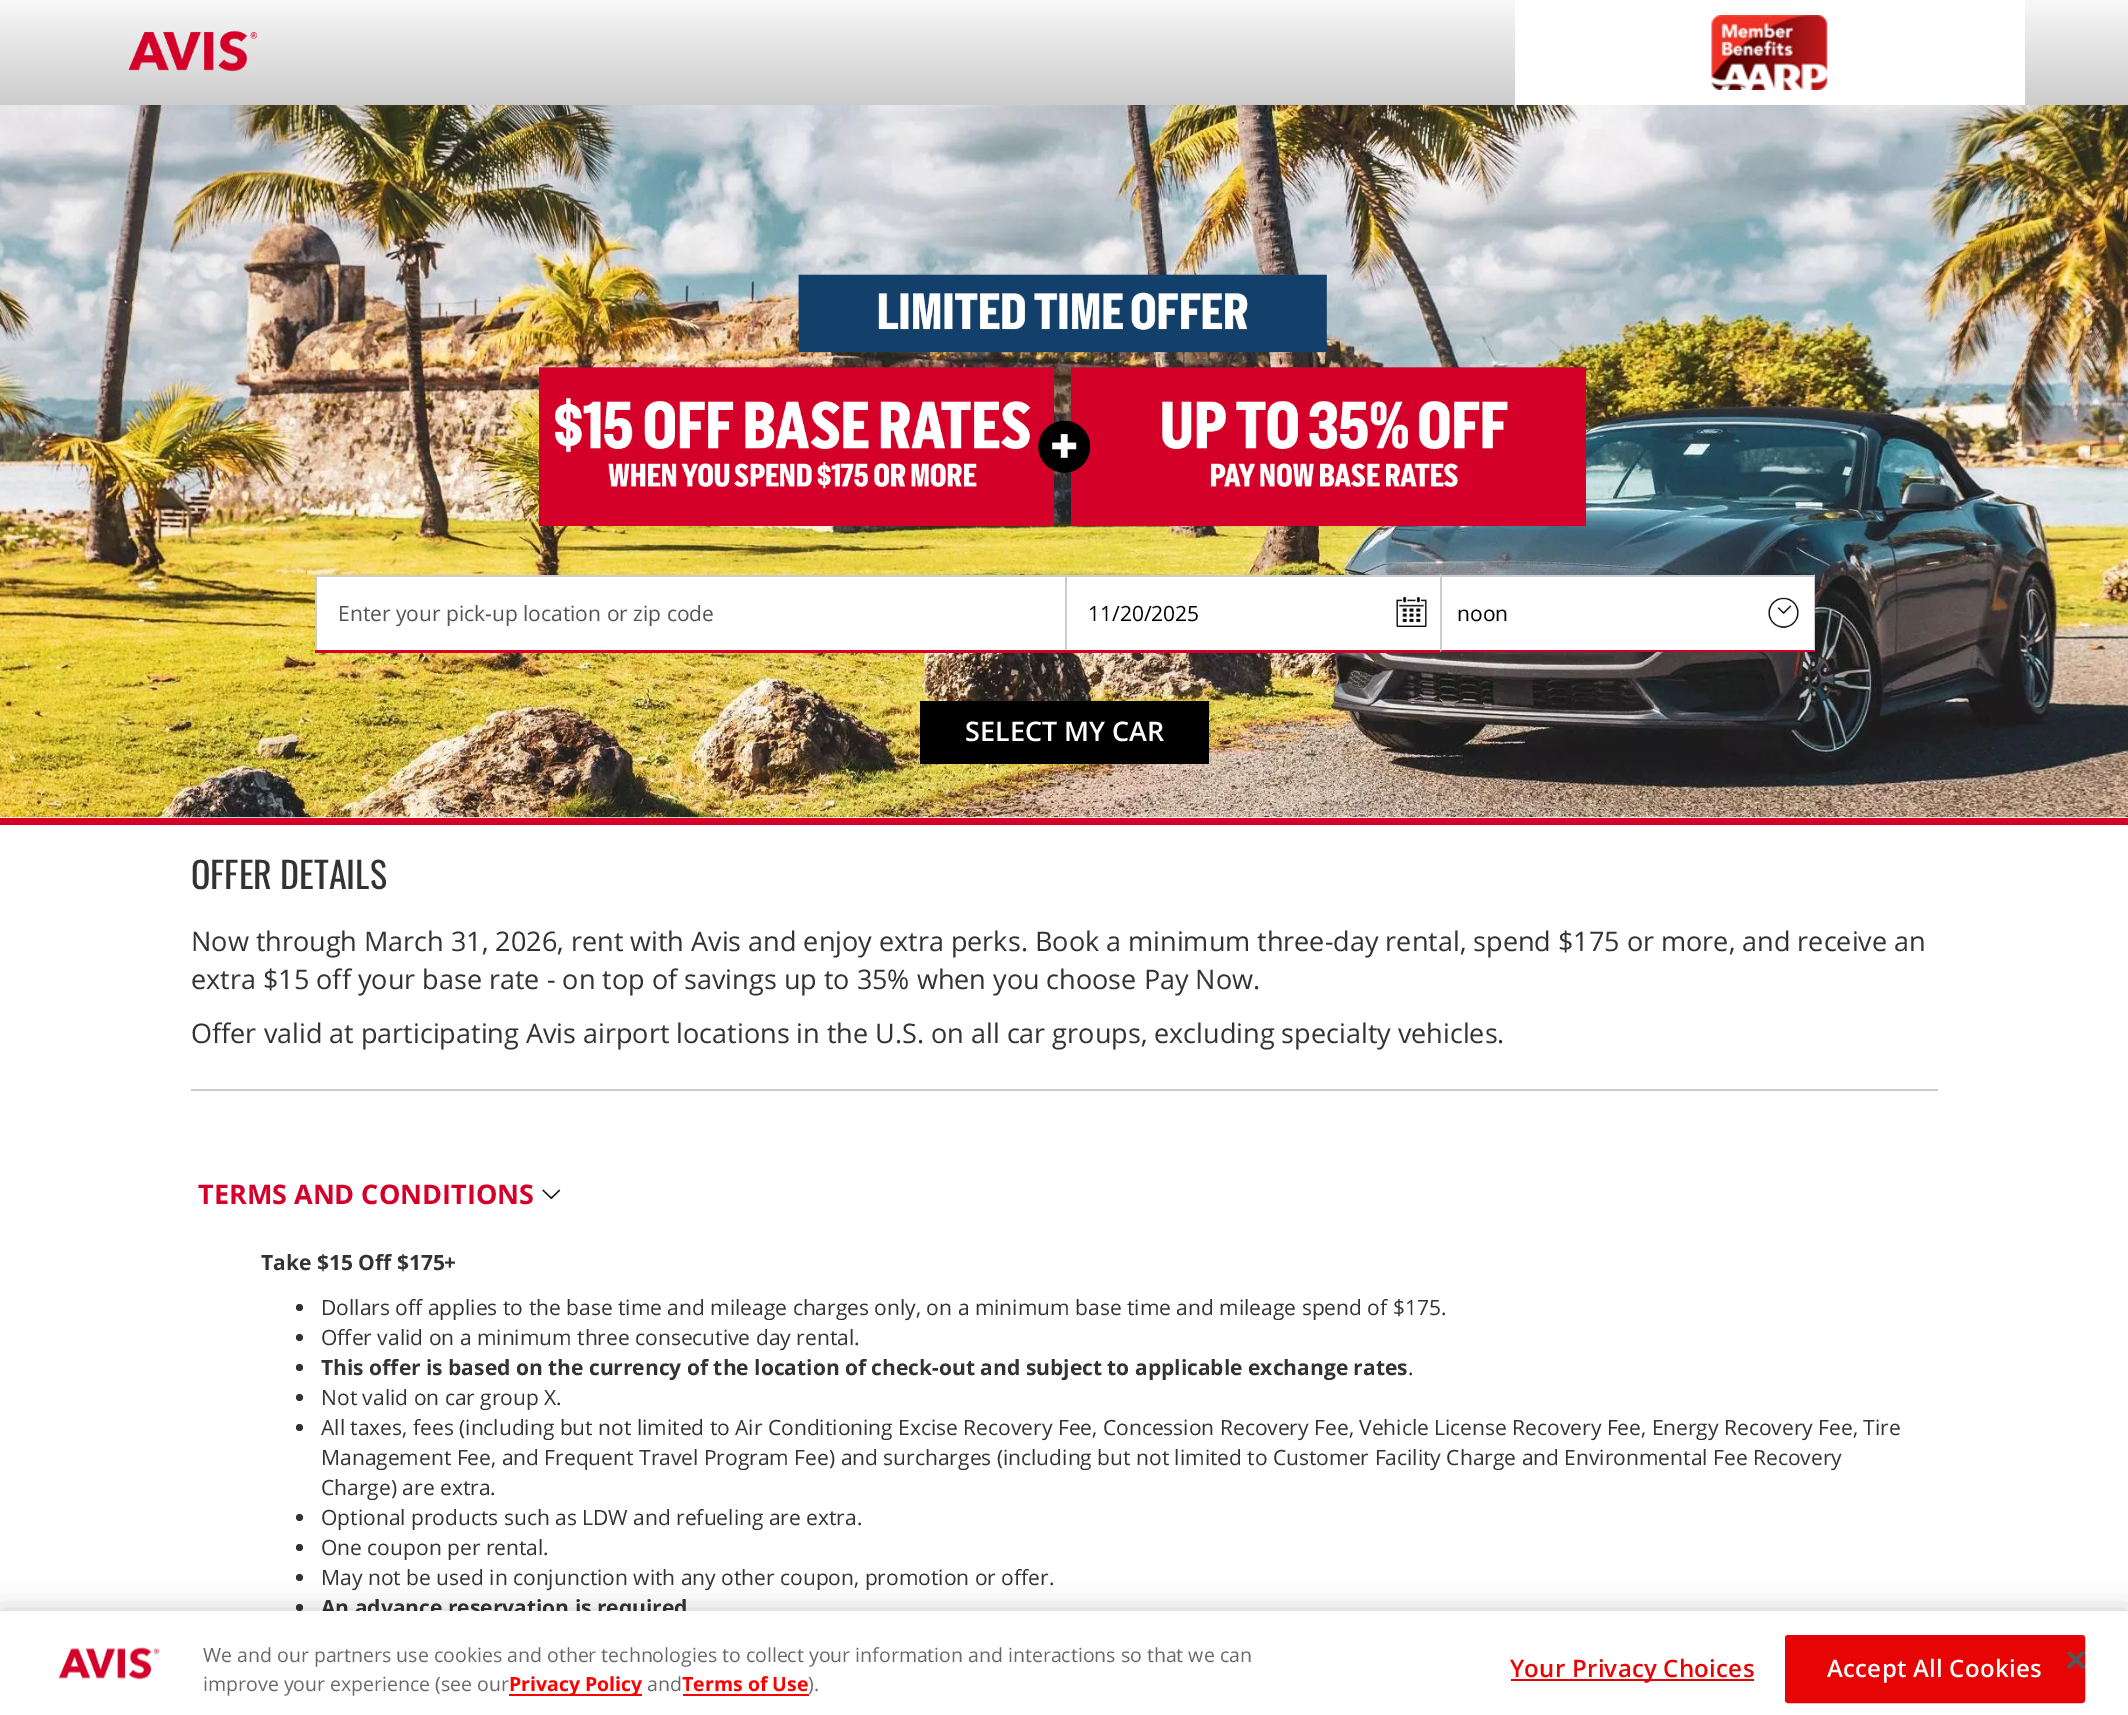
%!PS-Adobe-3.0
%%BoundingBox: 0 0 2128 1715
%%LanguageLevel: 3
%%Pages: 1
%%EndComments
%%BeginProlog
/setink { 3 { 255 div 3 1 roll } repeat setrgbcolor } def
/usefont { [ exch dup neg 0 0 3 -1 roll 0 0 ] selectfont } def
/drawtext { setink usefont moveto show } def
/fillbox { setink rectfill } def
/setalpha { dup .setfillconstantalpha .setstrokeconstantalpha } def
/disc { newpath 0 360 arc closepath } def
/rrect { 5 dict begin { /r /h /w /y /x } { exch def } forall
  x r add y moveto x w add y 2 copy h add r arct x w add y h add x 1 index r arct
  x y h add x y r arct x y 2 copy exch w add exch r arct closepath end } def
/softshadow { 12 dict begin { /a /b /q /h /w /y /x } { exch def } forall gsave /was 0 def
  9 -2 -9 { dup b mul 4 div /e exch def 1 sub .425 mul 2.718 exch exp 1 add a .99 .min exch div /now exch def
    1 1 now sub 1 was sub div sub setalpha /was now def
    w h .min e 2 mul add 0 gt { x e sub y e sub w e 2 mul add h e 2 mul add
      q e add b .6 mul add w h .min 2 div e add .min 0 .max rrect fill } if } for grestore end } def
/drawimage { 5 dict begin { /h /w /y /x /name } { exch def } forall
  gsave x y translate w h scale
  w h 8 [w 0 0 h 0 0] name (r) file false 3 colorimage grestore end } def
%%EndProlog
%%BeginSetup
<< /PageSize [2128 1715] /PageUsesTransparency true >> setpagedevice
%%EndSetup
%%Page: 1 1
0 .pushpdf14devicefilter
0 1715 translate 1 -1 scale
4 setmiterlimit
0 0 2128 1715 255 255 255 fillbox
gsave 0 0 moveto 2128 0 lineto 2128 105 lineto 0 105 lineto closepath clip newpath
<< /ShadingType 2 /ColorSpace /DeviceRGB /Coords [1064 0 1064 105] /Extend [true true] /Function << /FunctionType 2 /Domain [0 1] /C0 [0.973 0.973 0.973] /C1 [0.8 0.8 0.8] /N 1 >> >> shfill grestore
(assets/img1.rgb) 128 30 130 42 drawimage
1515 0 510 105 255 255 255 fillbox
(assets/img2.rgb) 1711 15 117 75 drawimage
(assets/img4.rgb) 0 105 2128 713 drawimage
(assets/img3.rgb) 539 274 1047 252 drawimage
0 818 2128 7 212 0 42 fillbox
315 650 1125 3 212 0 42 fillbox
317 577 748 73 255 255 255 fillbox
315 575 1500 2 204 204 204 fillbox
315 575 2 75 204 204 204 fillbox
(Enter your pick-up location or zip code) 338 621 /OpenSans-Regular 21 85 85 85 drawtext
1067 577 373 73 255 255 255 fillbox
(assets/img5.rgb) 1396 597 31 30 drawimage
1065 575 2 75 204 204 204 fillbox
(11/20/2025) 1088 621 /OpenSans-Regular 21 0 0 0 drawtext
1442 577 372 73 255 255 255 fillbox
(assets/img6.rgb) 1768 597 31 31 drawimage
204 204 204 setink
1815 574 moveto 1815 652 lineto 1814 650 lineto 1814 576 lineto closepath fill
212 0 42 setink
1815 652 moveto 1440 652 lineto 1442 650 lineto 1814 650 lineto closepath fill
204 204 204 setink
1440 652 moveto 1440 574 lineto 1442 576 lineto 1442 650 lineto closepath fill
(noon) 1457 621 /OpenSans-Regular 21 0 0 0 drawtext
920 701 289 63 0 0 0 fillbox
(SELECT MY CAR) 965 741 /OpenSans-SemiBold 27 255 255 255 drawtext
(OFFER DETAILS) 191 889 /Oswald-Regular 36 51 51 51 drawtext
191 1089 1747 2 204 204 204 fillbox
(Now through March 31, 2026, rent with Avis and enjoy extra perks. Book a minimum three-day rental, spend $175 or more, and receive an) 191 951 /OpenSans-Regular 27 51 51 51 drawtext
(extra $15 off your base rate - on top of savings up to 35% when you choose Pay Now.) 191 989 /OpenSans-Regular 27 51 51 51 drawtext
(Offer valid at participating Avis airport locations in the U.S. on all car groups, excluding specialty vehicles.) 191 1043 /OpenSans-Regular 27 51 51 51 drawtext
(TERMS AND CONDITIONS) 198 1204 /OpenSans-Bold 27 212 0 42 drawtext
(assets/img7.rgb) 542 1189 19 11 drawimage
(Take $15 Off $175+) 261 1270 /OpenSans-Bold 21 51 51 51 drawtext
299.5 1307.5 3.5 disc fill
(Dollars off applies to the base time and mileage charges only, on a minimum base time and mileage spend of $175.) 321 1315 /OpenSans-Regular 21 51 51 51 drawtext
299.5 1337.5 3.5 disc fill
(Offer valid on a minimum three consecutive day rental.) 321 1345 /OpenSans-Regular 21 51 51 51 drawtext
299.5 1367.5 3.5 disc fill
(This offer is based on the currency of the location of check-out and subject to applicable exchange rates) 321 1375 /OpenSans-Bold 21 51 51 51 drawtext
(.) 1408 1375 /OpenSans-Regular 21 51 51 51 drawtext
299.5 1397.5 3.5 disc fill
(Not valid on car group X.) 321 1405 /OpenSans-Regular 21 51 51 51 drawtext
299.5 1427.5 3.5 disc fill
(All taxes, fees \(including but not limited to Air Conditioning Excise Recovery Fee, Concession Recovery Fee, Vehicle License Recovery Fee, Energy Recovery Fee, Tire) 321 1435 /OpenSans-Regular 21 51 51 51 drawtext
(Management Fee, and Frequent Travel Program Fee\) and surcharges \(including but not limited to Customer Facility Charge and Environmental Fee Recovery) 321 1465 /OpenSans-Regular 21 51 51 51 drawtext
(Charge\) are extra.) 321 1495 /OpenSans-Regular 21 51 51 51 drawtext
299.5 1517.5 3.5 disc fill
(Optional products such as LDW and refueling are extra.) 321 1525 /OpenSans-Regular 21 51 51 51 drawtext
299.5 1547.5 3.5 disc fill
(One coupon per rental.) 321 1555 /OpenSans-Regular 21 51 51 51 drawtext
299.5 1577.5 3.5 disc fill
(May not be used in conjunction with any other coupon, promotion or offer.) 321 1585 /OpenSans-Regular 21 51 51 51 drawtext
299.5 1607.5 3.5 disc fill
(An advance reservation is required) 321 1615 /OpenSans-Bold 21 51 51 51 drawtext
0 0 0 setink
0 1611 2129 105 0 13.5 0.2 softshadow
0 1611 2128 104 255 255 255 fillbox
(assets/img8.rgb) 58 1647 101 33 drawimage
(We and our partners use cookies and other technologies to collect your information and interactions so that we can) 203 1662 /OpenSans-Regular 19.5 105 105 105 drawtext
(improve your experience \(see our) 203 1691 /OpenSans-Regular 19.5 105 105 105 drawtext
509 1694 133 2 255 0 0 fillbox
(Privacy Policy) 509 1691 /OpenSans-Bold 19.5 255 0 0 drawtext
(and) 647 1691 /OpenSans-Regular 19.5 105 105 105 drawtext
(Terms of Use) 682 1691 /OpenSans-Bold 19.5 255 0 0 drawtext
683 1694 126 2 255 0 0 fillbox
(\).) 808 1691 /OpenSans-Regular 19.5 105 105 105 drawtext
1511 1679 243 2 231 4 4 fillbox
/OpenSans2-SemiBold 24 usefont
1510 1677 moveto 0.25 0 (Your Privacy Choices) ashow
1786 1636 298 66 2 rrect gsave fill grestore
2 setlinewidth
stroke
255 255 255 setink
1827 1677 moveto 0.25 0 (Accept All Cookies) ashow
(assets/img9.rgb) 2067 1652 18 17 drawimage
.poppdf14devicefilter showpage
%%EOF
